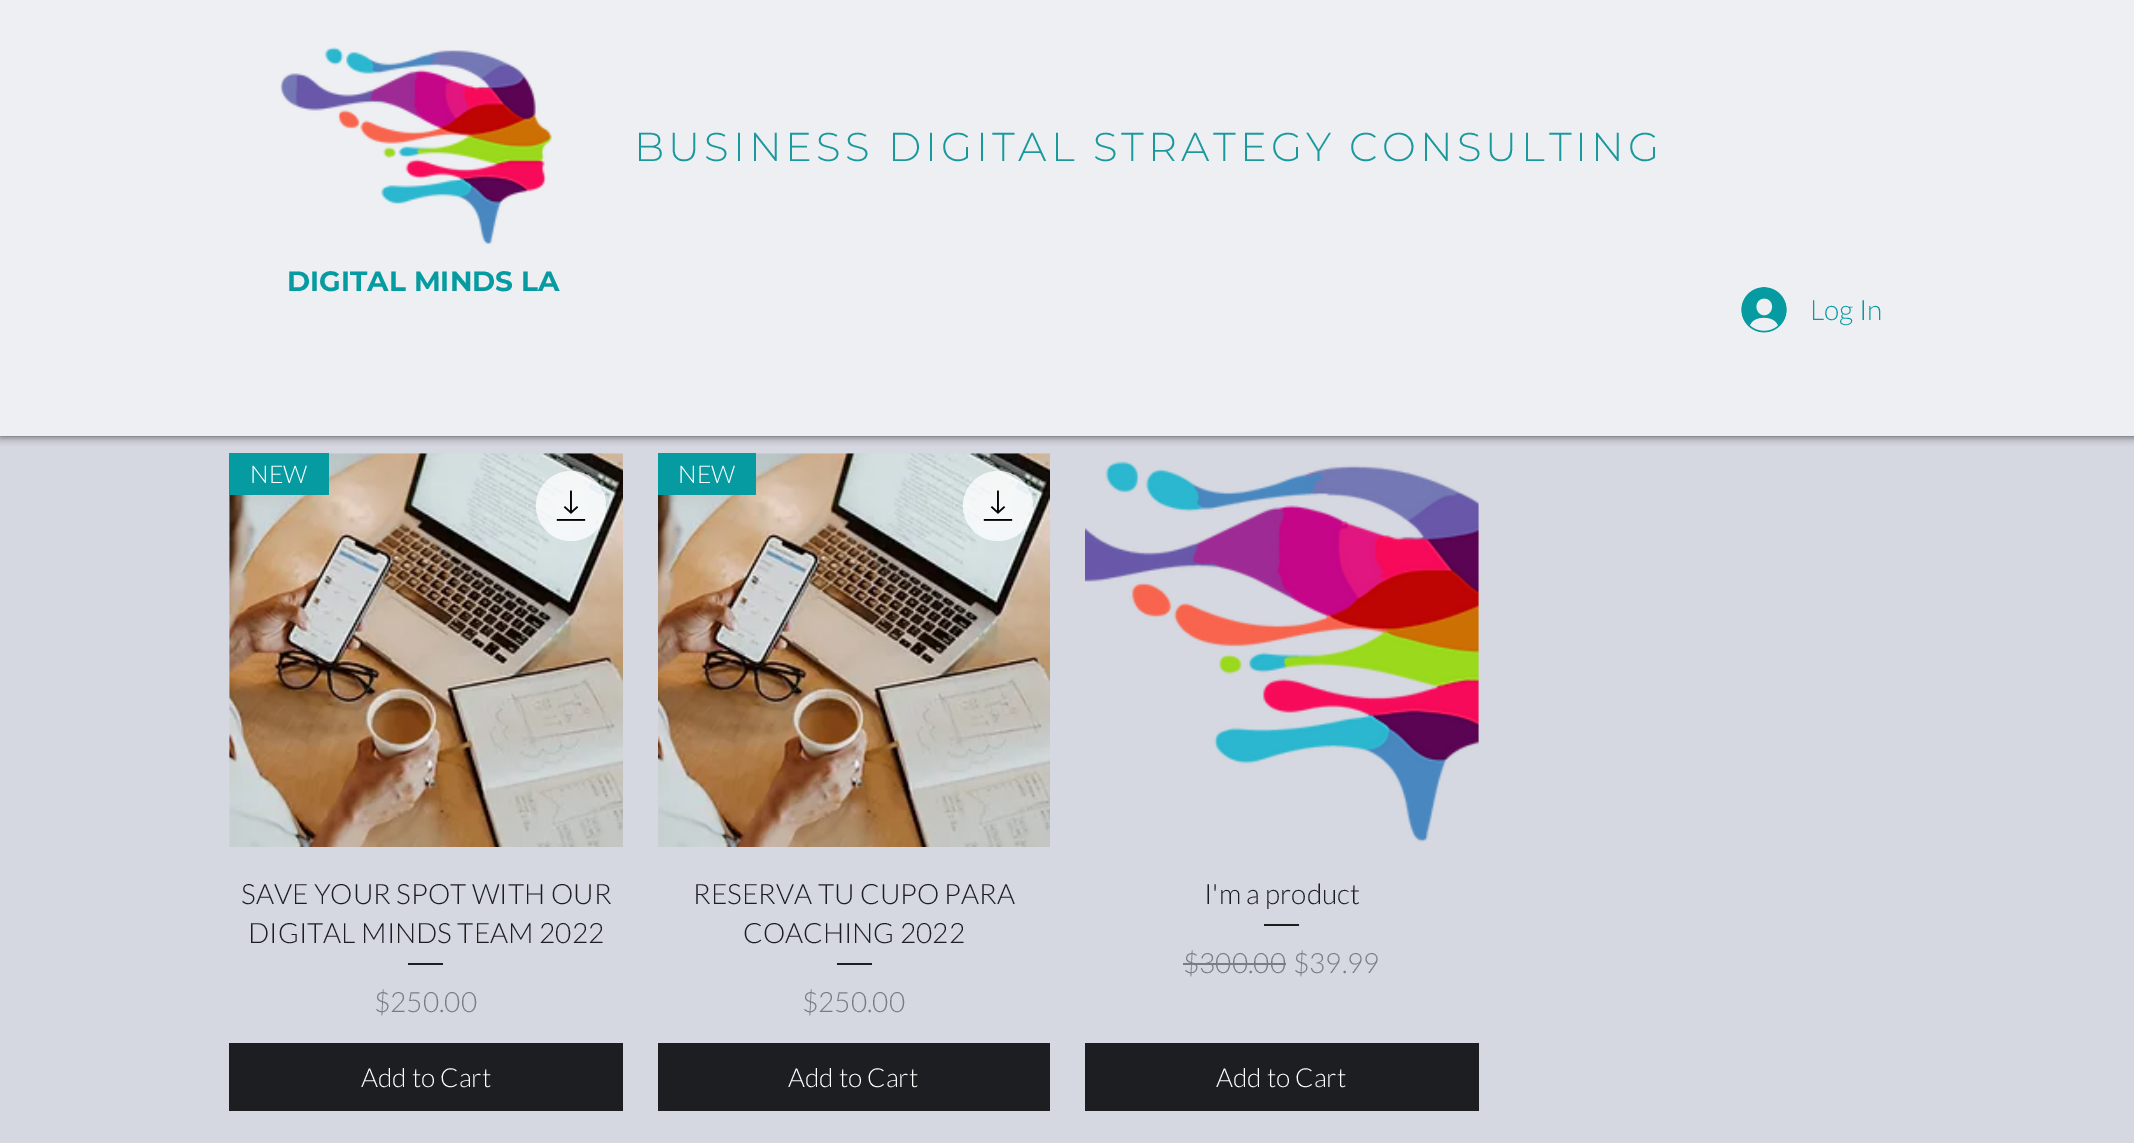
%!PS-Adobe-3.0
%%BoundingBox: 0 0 2134 1143
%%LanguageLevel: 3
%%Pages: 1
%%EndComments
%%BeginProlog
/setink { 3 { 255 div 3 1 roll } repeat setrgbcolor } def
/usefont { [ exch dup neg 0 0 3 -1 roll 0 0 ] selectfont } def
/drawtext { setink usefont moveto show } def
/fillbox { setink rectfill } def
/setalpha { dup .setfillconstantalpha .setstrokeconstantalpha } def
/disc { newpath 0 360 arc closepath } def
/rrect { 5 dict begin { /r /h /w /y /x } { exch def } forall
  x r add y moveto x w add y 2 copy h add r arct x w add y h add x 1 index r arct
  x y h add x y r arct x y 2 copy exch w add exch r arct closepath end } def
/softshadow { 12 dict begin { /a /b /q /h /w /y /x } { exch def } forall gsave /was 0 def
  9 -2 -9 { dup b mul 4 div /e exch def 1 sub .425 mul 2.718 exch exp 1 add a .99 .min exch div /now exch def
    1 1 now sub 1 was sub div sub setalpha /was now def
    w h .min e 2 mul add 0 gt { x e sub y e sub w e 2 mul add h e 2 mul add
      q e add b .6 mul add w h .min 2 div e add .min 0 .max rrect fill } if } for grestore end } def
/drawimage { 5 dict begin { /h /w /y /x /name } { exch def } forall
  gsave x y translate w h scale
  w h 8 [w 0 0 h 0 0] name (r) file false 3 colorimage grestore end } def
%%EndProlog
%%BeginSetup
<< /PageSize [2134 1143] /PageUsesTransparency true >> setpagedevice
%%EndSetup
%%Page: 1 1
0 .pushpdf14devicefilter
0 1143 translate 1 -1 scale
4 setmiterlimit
0 0 2134 1143 213 216 224 fillbox
gsave
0 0 moveto 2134 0 lineto 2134 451 lineto 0 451 lineto closepath 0 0 moveto 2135 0 lineto 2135 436 lineto 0 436 lineto closepath eoclip newpath
0 0 0 setink
0 0 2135 436 0 4.5 0.7 softshadow
grestore
0.6 setalpha
0 0 2134 436 255 255 255 fillbox
1 setalpha
(assets/img1.rgb) 280 47 272 198 drawimage
/Montserrat-Light 40.25 usefont
26 153 157 setink
634 161 moveto 4 0 (BUSINESS DIGITAL STRATEGY CONSULTING) ashow
(DIGITAL MINDS LA) 287 291 /Montserrat-Bold 28 6 154 161 drawtext
(assets/img2.rgb) 1741 287 46 46 drawimage
(Log In) 1810 320 /Lato-Light 28 6 154 161 drawtext
(assets/img3.rgb) 229 453 394 394 drawimage
0.75 setalpha
255 255 255 setink
571 506 35 disc fill
1 setalpha
(assets/img4.rgb) 556 490 30 31 drawimage
229 453 100 42 6 154 161 fillbox
(NEW) 250 483 /Lato-Light 24.5 255 255 255 drawtext
(SAVE YOUR SPOT WITH OUR) 241 904 /Lato-Light 28 29 30 33 drawtext
(DIGITAL MINDS TEAM 2022) 248 943 /Lato-Light 28 29 30 33 drawtext
408 963 35 2 29 30 33 fillbox
($250.00) 374 1012 /Lato-Light 28 120 124 136 drawtext
229 1043 394 68 29 30 33 fillbox
(Add to Cart) 361 1087 /Lato-Light 26.25 255 255 255 drawtext
(assets/img5.rgb) 658 453 392 394 drawimage
0.75 setalpha
998 506 35 disc fill
1 setalpha
(assets/img4.rgb) 983 490 30 31 drawimage
658 453 98 42 6 154 161 fillbox
(NEW) 678 483 /Lato-Light 24.5 255 255 255 drawtext
(RESERVA TU CUPO PARA) 693 904 /Lato-Light 28 29 30 33 drawtext
(COACHING 2022) 743 943 /Lato-Light 28 29 30 33 drawtext
837 963 35 2 29 30 33 fillbox
($250.00) 802 1012 /Lato-Light 28 120 124 136 drawtext
658 1043 392 68 29 30 33 fillbox
(Add to Cart) 788 1087 /Lato-Light 26.25 255 255 255 drawtext
(assets/img6.rgb) 1085 461 394 381 drawimage
(I'm a product) 1204 904 /Lato-Light 28 29 30 33 drawtext
1264 924 35 2 29 30 33 fillbox
($300.00) 1183 973 /Lato-Light 28 120 124 136 drawtext
1183 963 103 2 120 124 136 fillbox
($39.99) 1293 973 /Lato-Light 28 120 124 136 drawtext
1085 1043 394 68 29 30 33 fillbox
(Add to Cart) 1216 1087 /Lato-Light 26.25 255 255 255 drawtext
.poppdf14devicefilter showpage
%%EOF
